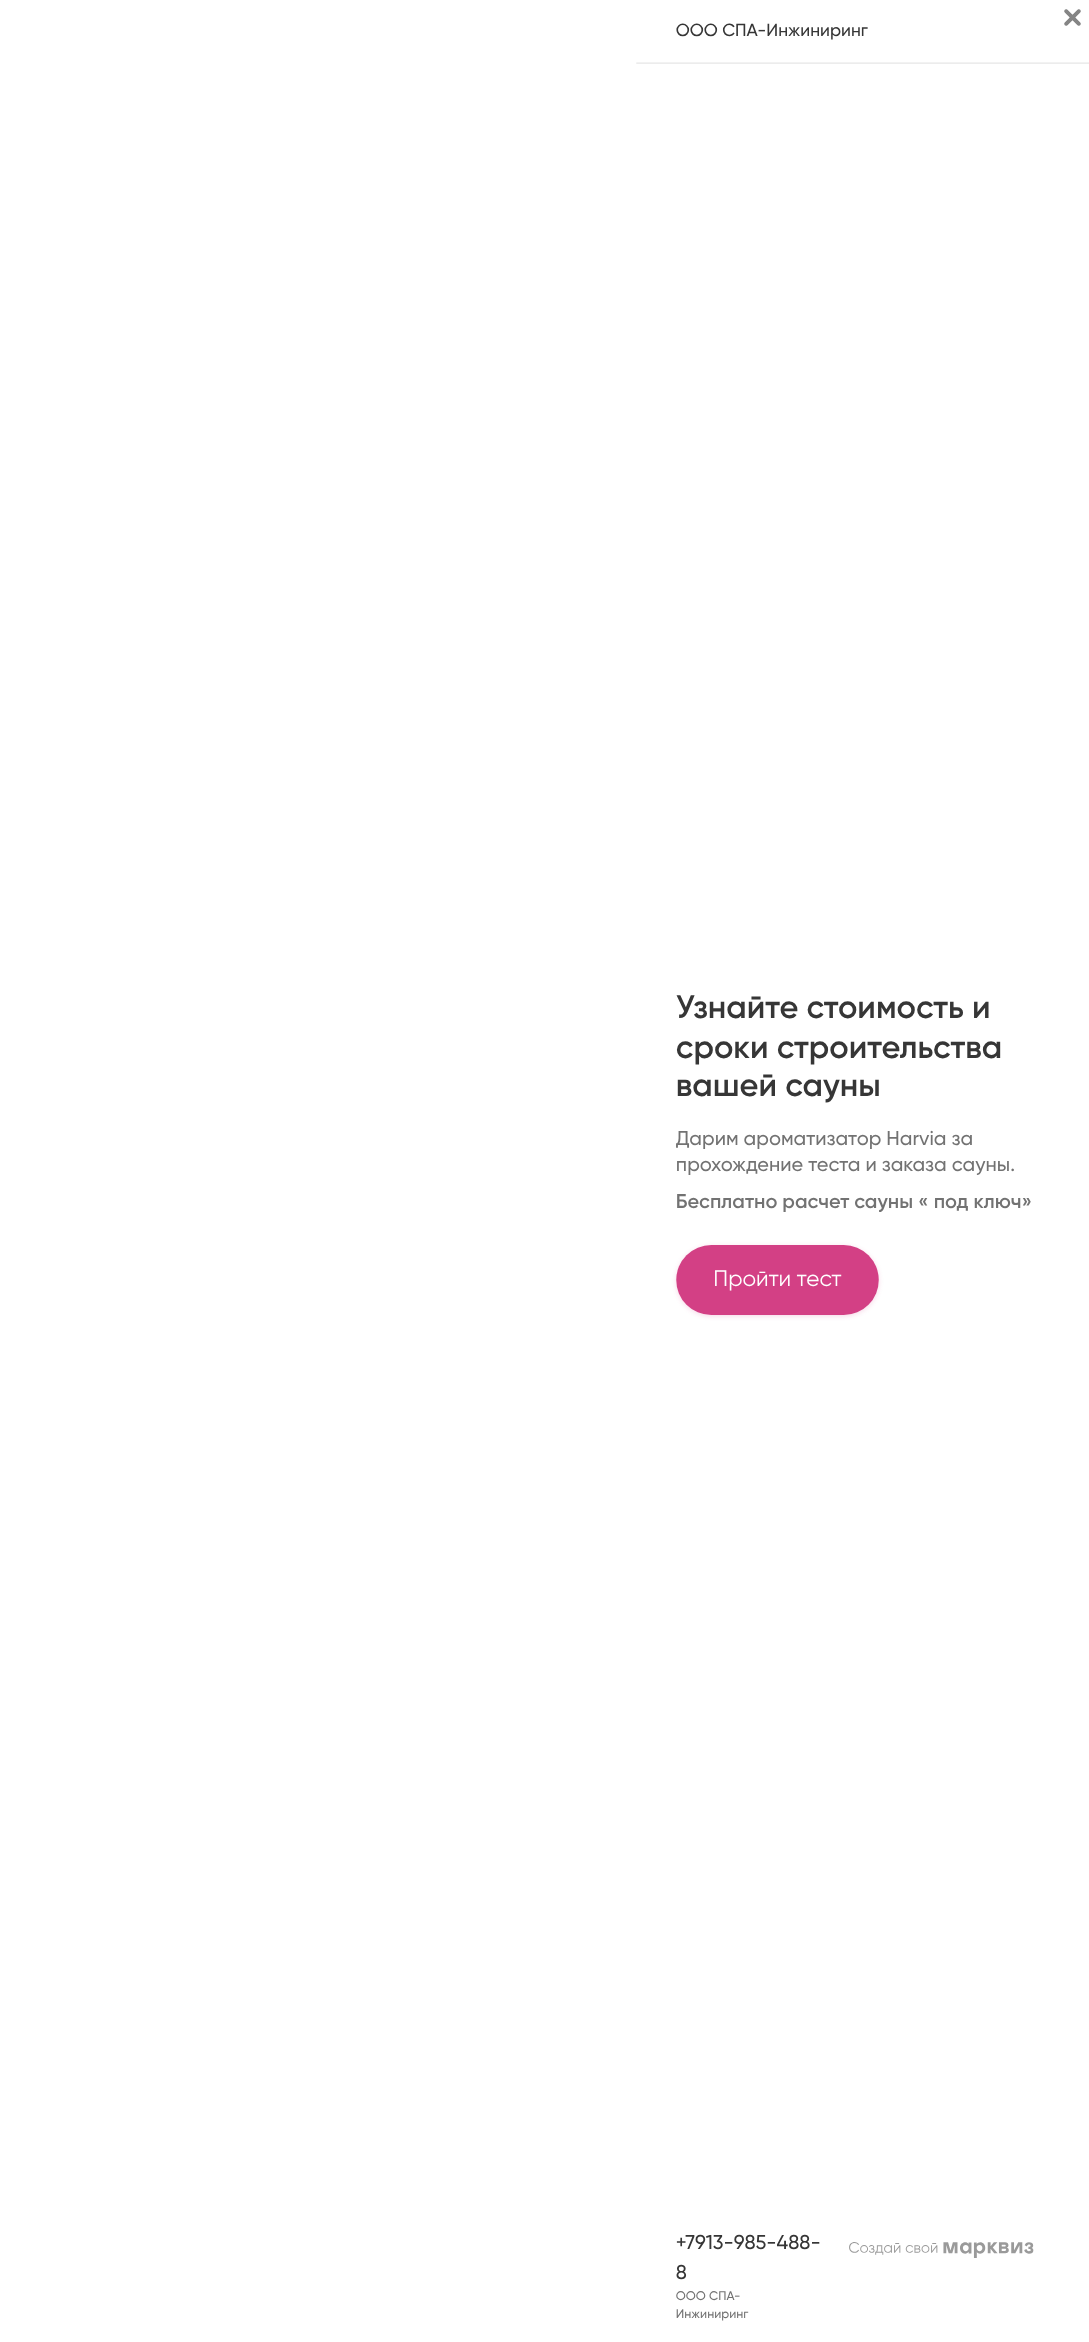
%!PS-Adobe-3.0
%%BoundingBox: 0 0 1089 2342
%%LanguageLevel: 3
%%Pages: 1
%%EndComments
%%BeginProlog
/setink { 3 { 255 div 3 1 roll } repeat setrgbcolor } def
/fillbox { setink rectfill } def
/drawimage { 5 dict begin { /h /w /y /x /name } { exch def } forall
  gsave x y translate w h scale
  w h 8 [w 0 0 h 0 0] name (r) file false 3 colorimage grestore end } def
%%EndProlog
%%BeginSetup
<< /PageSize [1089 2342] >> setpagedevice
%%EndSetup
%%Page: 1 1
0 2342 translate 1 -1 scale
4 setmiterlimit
0 0 1089 2342 255 255 255 fillbox
(assets/img2.rgb) 636 23 453 2298 drawimage
(assets/img1.rgb) 1064 9 17 17 drawimage
showpage
%%EOF
